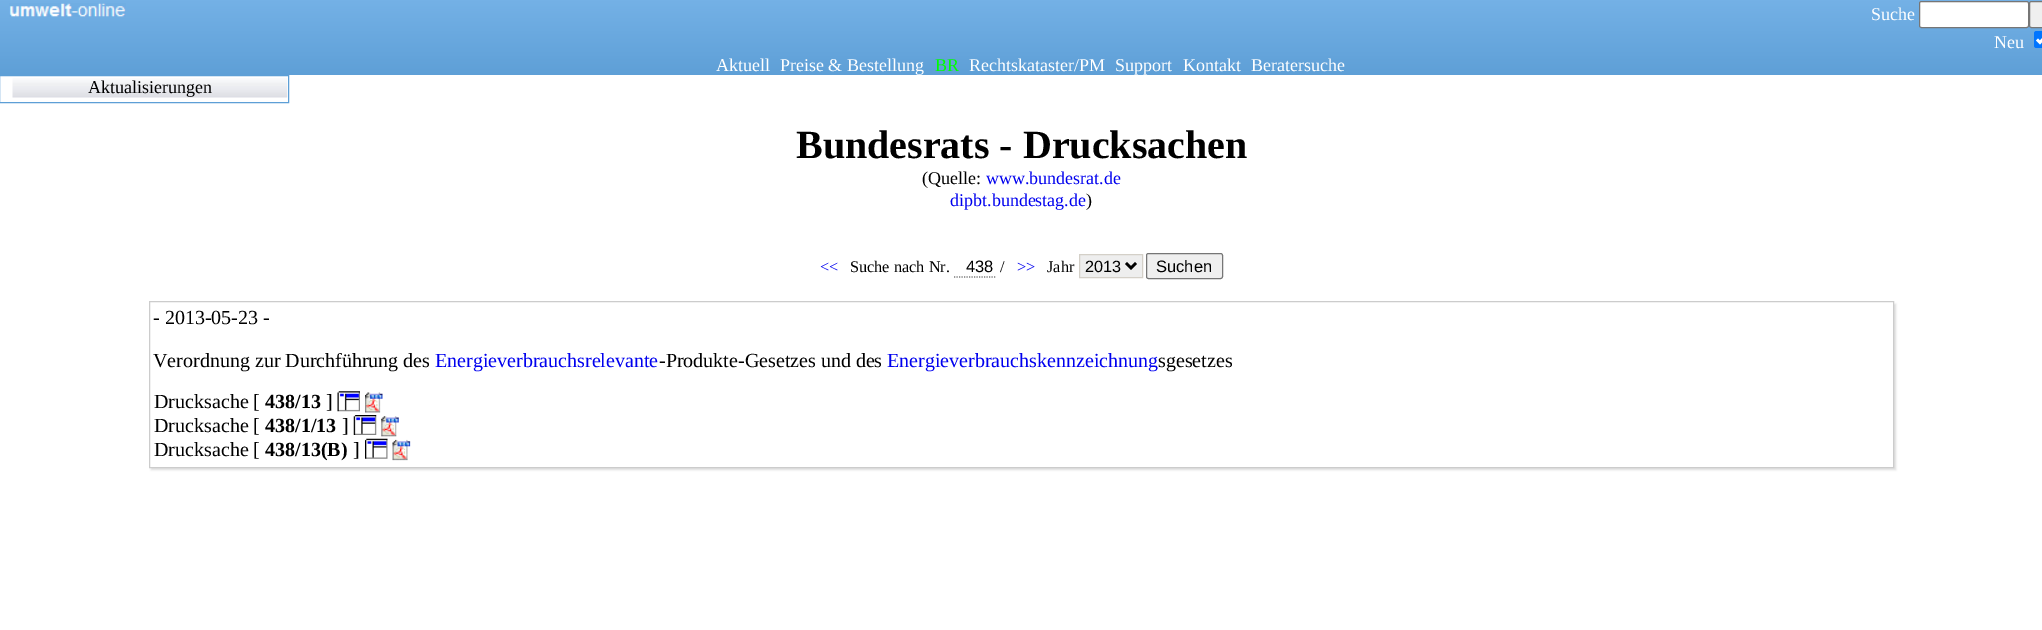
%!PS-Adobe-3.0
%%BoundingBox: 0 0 2042 630
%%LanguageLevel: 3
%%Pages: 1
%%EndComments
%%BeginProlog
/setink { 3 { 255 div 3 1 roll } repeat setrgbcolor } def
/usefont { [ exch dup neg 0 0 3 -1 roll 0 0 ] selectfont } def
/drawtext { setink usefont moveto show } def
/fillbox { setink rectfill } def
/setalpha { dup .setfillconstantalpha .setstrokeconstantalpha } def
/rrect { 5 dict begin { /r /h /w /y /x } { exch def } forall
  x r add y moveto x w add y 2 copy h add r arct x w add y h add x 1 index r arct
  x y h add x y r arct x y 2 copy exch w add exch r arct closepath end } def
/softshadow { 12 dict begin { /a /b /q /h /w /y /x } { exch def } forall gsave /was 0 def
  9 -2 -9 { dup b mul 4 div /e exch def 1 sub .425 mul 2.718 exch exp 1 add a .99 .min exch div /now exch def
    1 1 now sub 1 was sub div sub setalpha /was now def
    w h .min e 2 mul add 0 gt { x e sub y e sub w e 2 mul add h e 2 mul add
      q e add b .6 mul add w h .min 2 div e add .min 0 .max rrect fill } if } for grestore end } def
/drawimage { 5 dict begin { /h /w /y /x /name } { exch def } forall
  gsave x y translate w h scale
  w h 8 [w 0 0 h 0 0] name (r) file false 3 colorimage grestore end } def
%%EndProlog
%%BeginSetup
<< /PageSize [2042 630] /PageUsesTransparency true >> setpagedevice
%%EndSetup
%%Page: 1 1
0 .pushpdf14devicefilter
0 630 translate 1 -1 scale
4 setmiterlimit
0 0 2042 630 255 255 255 fillbox
(assets/img1.rgb) 0 0 2042 75 drawimage
(assets/img2.rgb) 9 3 117 14 drawimage
(Suche) 1871 20 /LiberationSerif-Regular 18 255 255 255 drawtext
1919.5 1.5 109 26 2 rrect gsave fill grestore
118 118 118 setink
stroke
239 239 239 setink
2029.5 1.5 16 26 2 rrect gsave fill grestore
118 118 118 setink
stroke
(Neu) 1994 48 /LiberationSerif-Regular 18 255 255 255 drawtext
0 117 255 setink
2034 31 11 17 2.5 rrect fill
255 255 255 setink
2.6 setlinewidth
2037 39.5 moveto 2040 42.5 lineto 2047 34.5 lineto stroke
(Aktuell) 716 71 /LiberationSerif-Regular 18 255 255 255 drawtext
(Preise & Bestellung) 780 71 /LiberationSerif-Regular 18 255 255 255 drawtext
(BR) 935 71 /LiberationSerif-Regular 18 0 255 0 drawtext
(Rechtskataster/PM) 969 71 /LiberationSerif-Regular 18 255 255 255 drawtext
(Support) 1115 71 /LiberationSerif-Regular 18 255 255 255 drawtext
(Kontakt) 1183 71 /LiberationSerif-Regular 18 255 255 255 drawtext
(Beratersuche) 1251 71 /LiberationSerif-Regular 18 255 255 255 drawtext
93 159 214 setink
1 setlinewidth
-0.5 75.5 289 27 rectstroke
(assets/img3.rgb) 12 78 276 20 drawimage
(Aktualisierungen) 88 93 /LiberationSerif-Regular 18 0 0 0 drawtext
(Bundesrats - Drucksachen) 796 158 /LiberationSerif-Bold 40 0 0 0 drawtext
(\(Quelle:) 922 184 /LiberationSerif-Regular 18 0 0 0 drawtext
(www.bundesrat.de) 986 184 /LiberationSerif-Regular 18 0 0 238 drawtext
(dipbt.bundestag.de) 950 206 /LiberationSerif-Regular 18 0 0 238 drawtext
(\)) 1086 206 /LiberationSerif-Regular 18 0 0 0 drawtext
(<<) 820 272 /LiberationSerif-Regular 16.25 0 0 238 drawtext
(Suche nach Nr.) 850 272 /LiberationSerif-Regular 16.25 0 0 0 drawtext
119 119 119 setink
1.2 setlinewidth
[1.25 1.25] 0 setdash
954 277 moveto 996 277 lineto stroke
(438) 966 272 /LiberationSans-Regular 16.5 0 0 0 drawtext
(/) 1000 272 /LiberationSerif-Regular 16.25 0 0 0 drawtext
(>>) 1017 272 /LiberationSerif-Regular 16.25 0 0 238 drawtext
(Jahr) 1047 272 /LiberationSerif-Regular 16.25 0 0 0 drawtext
238 238 238 setink
1079.5 254.5 moveto 1142.5 254.5 lineto 1142.5 277.5 lineto 1079.5 277.5 lineto closepath gsave fill grestore
212 208 200 setink
1 setlinewidth
[] 0 setdash
stroke
0 0 0 setink
2.5 setlinewidth
1126 263 moveto 1131 268 lineto 1136 263 lineto stroke
(2013) 1085 272 /LiberationSans-Regular 16.25 0 0 0 drawtext
239 239 239 setink
1146.5 253.5 76 25 2 rrect gsave fill grestore
118 118 118 setink
1 setlinewidth
stroke
(Suchen) 1156 272 /LiberationSans-Regular 16.5 0 0 0 drawtext
gsave
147 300 moveto 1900 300 lineto 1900 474 lineto 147 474 lineto closepath 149 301 moveto 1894 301 lineto 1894 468 lineto 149 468 lineto closepath eoclip newpath
221 221 221 setink
151 304 1745 166 0 1 1 softshadow
grestore
204 204 204 setink
149.5 301.5 1744 166 rectstroke
(- 2013-05-23 -) 153 324 /LiberationSerif-Regular 20 0 0 0 drawtext
(Verordnung zur Durchführung des) 153 367 /LiberationSerif-Regular 20 0 0 0 drawtext
(Energieverbrauchsrelevante) 435 367 /LiberationSerif-Regular 20 0 0 238 drawtext
(-Produkte-Gesetzes und des) 659 367 /LiberationSerif-Regular 20 0 0 0 drawtext
(Energieverbrauchskennzeichnung) 887 367 /LiberationSerif-Regular 20 0 0 238 drawtext
(sgesetzes) 1158 367 /LiberationSerif-Regular 20 0 0 0 drawtext
(Drucksache [) 154 408 /LiberationSerif-Regular 20 0 0 0 drawtext
(438/13) 265 408 /LiberationSerif-Bold 20 0 0 0 drawtext
(]) 326 408 /LiberationSerif-Regular 20 0 0 0 drawtext
(assets/img4.rgb) 337 391 23 21 drawimage
(assets/img5.rgb) 365 392 18 21 drawimage
(Drucksache [) 154 432 /LiberationSerif-Regular 20 0 0 0 drawtext
(438/1/13) 265 432 /LiberationSerif-Bold 20 0 0 0 drawtext
(]) 342 432 /LiberationSerif-Regular 20 0 0 0 drawtext
(assets/img6.rgb) 353 415 24 20 drawimage
(assets/img7.rgb) 381 416 18 21 drawimage
(Drucksache [) 154 456 /LiberationSerif-Regular 20 0 0 0 drawtext
(438/13\(B\)) 265 456 /LiberationSerif-Bold 20 0 0 0 drawtext
(]) 353 456 /LiberationSerif-Regular 20 0 0 0 drawtext
(assets/img8.rgb) 365 438 23 21 drawimage
(assets/img9.rgb) 392 439 19 22 drawimage
.poppdf14devicefilter showpage
%%EOF
